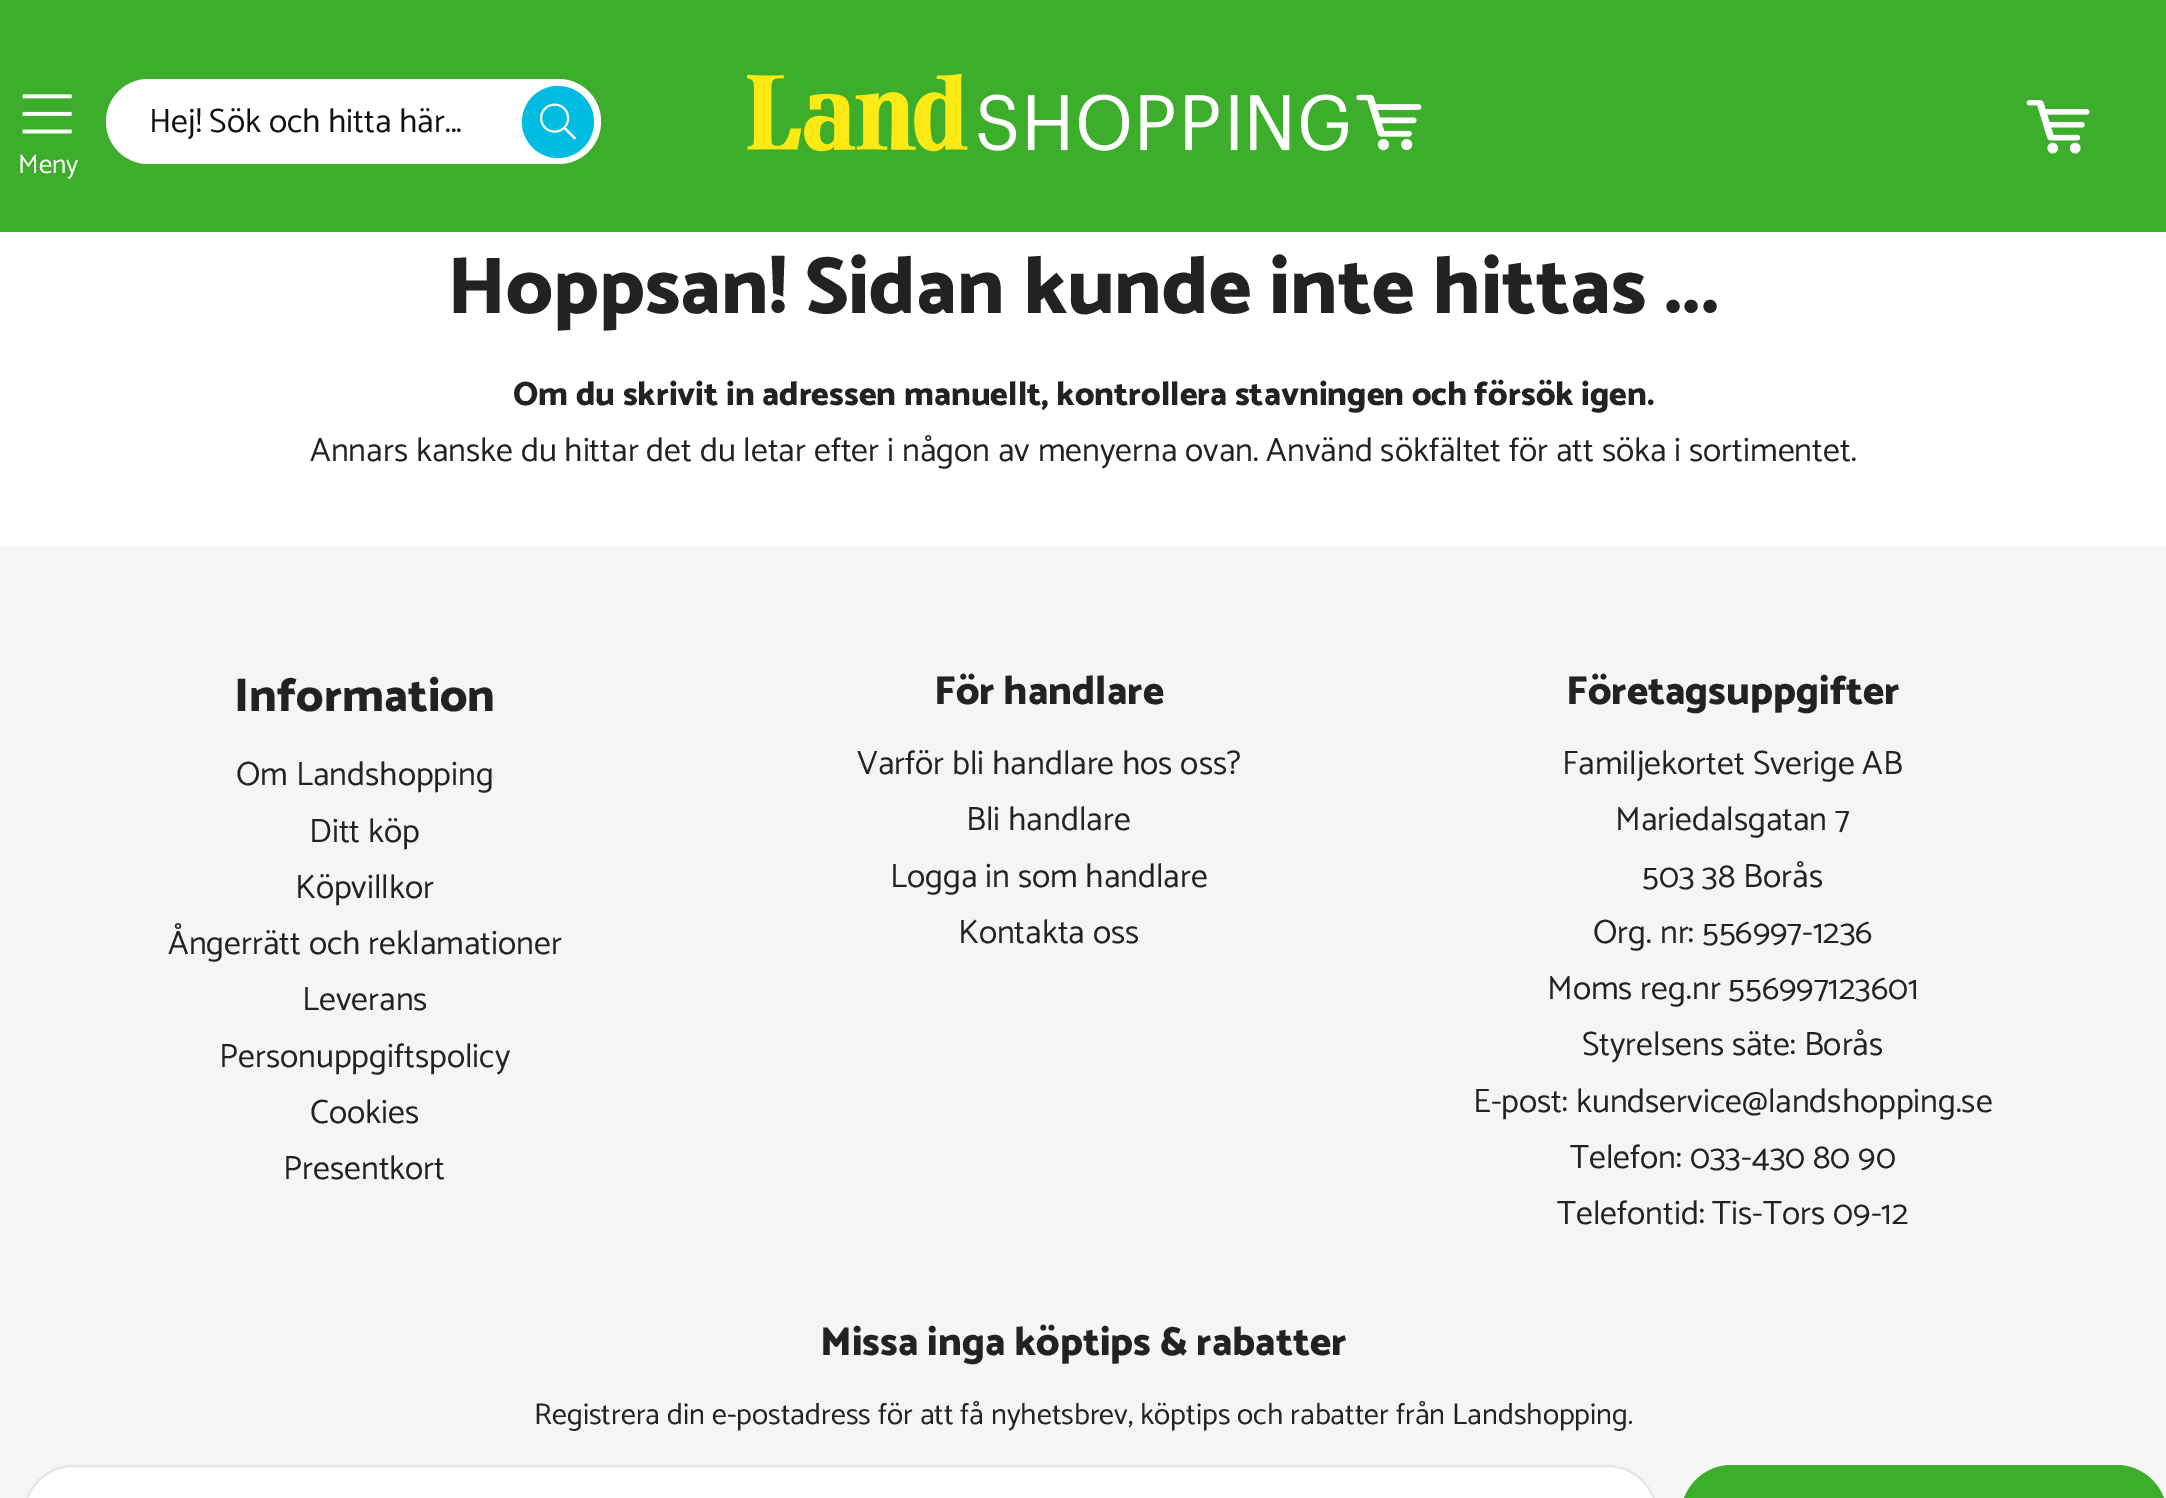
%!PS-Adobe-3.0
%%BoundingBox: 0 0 2166 1498
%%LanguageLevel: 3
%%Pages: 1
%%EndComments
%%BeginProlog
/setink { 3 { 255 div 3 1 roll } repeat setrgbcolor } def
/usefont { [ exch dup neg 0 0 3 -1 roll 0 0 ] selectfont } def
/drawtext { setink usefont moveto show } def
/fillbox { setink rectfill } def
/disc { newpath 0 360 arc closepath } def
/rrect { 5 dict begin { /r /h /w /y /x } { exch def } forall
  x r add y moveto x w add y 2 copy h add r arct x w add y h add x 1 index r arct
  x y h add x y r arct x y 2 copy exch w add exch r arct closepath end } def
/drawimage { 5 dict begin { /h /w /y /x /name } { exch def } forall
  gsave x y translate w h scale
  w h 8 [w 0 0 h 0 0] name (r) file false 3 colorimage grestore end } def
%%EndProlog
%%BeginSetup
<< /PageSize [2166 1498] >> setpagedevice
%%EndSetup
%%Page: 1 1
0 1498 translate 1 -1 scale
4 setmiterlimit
0 0 2166 1498 255 255 255 fillbox
0 0 2166 232 61 174 43 fillbox
255 255 255 setink
106 79 495 85 42.5 rrect fill
(Hej! Sök och hitta här...) 149 132 /Catamaran-Regular 33.75 17 17 17 drawtext
0 187 226 setink
558 122 36 disc fill
(assets/img1.rgb) 540 103 36 37 drawimage
(assets/img2.rgb) 747 74 675 78 drawimage
(assets/img3.rgb) 2026 100 64 54 drawimage
(assets/img4.rgb) 22 94 50 40 drawimage
(Meny) 18 173 /Catamaran-Regular 27 255 255 255 drawtext
(Hoppsan! Sidan kunde inte hittas ...) 447 313 /Catamaran-ExtraBold 81 34 34 34 drawtext
(Om du skrivit in adressen manuellt, kontrollera stavningen och försök igen.) 513 405 /Catamaran-ExtraBold 33.75 34 34 34 drawtext
(Annars kanske du hittar det du letar efter i någon av menyerna ovan. Använd sökfältet för att söka i sortimentet.) 310 461 /Catamaran-Regular 33.75 34 34 34 drawtext
0 547 2166 951 245 245 245 fillbox
(Information) 234 711 /Catamaran-ExtraBold 47.25 34 34 34 drawtext
(Om Landshopping) 236 785 /Catamaran-Regular 33.75 34 34 34 drawtext
(Ditt köp) 309 842 /Catamaran-Regular 33.75 34 34 34 drawtext
(Köpvillkor) 295 898 /Catamaran-Regular 33.75 34 34 34 drawtext
(Ångerrätt och reklamationer) 168 954 /Catamaran-Regular 33.75 34 34 34 drawtext
(Leverans) 302 1010 /Catamaran-Regular 33.75 34 34 34 drawtext
(Personuppgiftspolicy) 219 1067 /Catamaran-Regular 33.75 34 34 34 drawtext
(Cookies) 310 1123 /Catamaran-Regular 33.75 34 34 34 drawtext
(Presentkort) 283 1179 /Catamaran-Regular 33.75 34 34 34 drawtext
(För handlare) 934 704 /Catamaran-ExtraBold 40.5 34 34 34 drawtext
(Varför bli handlare hos oss?) 857 774 /Catamaran-Regular 33.75 34 34 34 drawtext
(Bli handlare) 966 830 /Catamaran-Regular 33.75 34 34 34 drawtext
(Logga in som handlare) 890 887 /Catamaran-Regular 33.75 34 34 34 drawtext
(Kontakta oss) 958 943 /Catamaran-Regular 33.75 34 34 34 drawtext
(Företagsuppgifter) 1566 704 /Catamaran-ExtraBold 40.5 34 34 34 drawtext
(Familjekortet Sverige AB) 1562 774 /Catamaran-Regular 33.75 34 34 34 drawtext
(Mariedalsgatan 7) 1615 830 /Catamaran-Regular 33.75 34 34 34 drawtext
(503 38 Borås) 1642 887 /Catamaran-Regular 33.75 34 34 34 drawtext
(Org. nr: 556997-1236) 1593 943 /Catamaran-Regular 33.75 34 34 34 drawtext
(Moms reg.nr 556997123601) 1547 999 /Catamaran-Regular 33.75 34 34 34 drawtext
(Styrelsens säte: Borås) 1582 1055 /Catamaran-Regular 33.75 34 34 34 drawtext
(E-post: kundservice@landshopping.se) 1473 1112 /Catamaran-Regular 33.75 34 34 34 drawtext
(Telefon: 033-430 80 90) 1570 1168 /Catamaran-Regular 33.75 34 34 34 drawtext
(Telefontid: Tis-Tors 09-12) 1557 1224 /Catamaran-Regular 33.75 34 34 34 drawtext
(Missa inga köptips & rabatter) 820 1355 /Catamaran-ExtraBold 40.5 34 34 34 drawtext
(Registrera din e-postadress för att få nyhetsbrev, köptips och rabatter från Landshopping.) 534 1424 /Catamaran-Regular 30 34 34 34 drawtext
255 255 255 setink
24 1466 1633 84 49.5 rrect gsave fill grestore
230 230 230 setink
2 setlinewidth
stroke
61 174 43 setink
1681 1465 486 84 50.5 rrect fill
showpage
%%EOF
